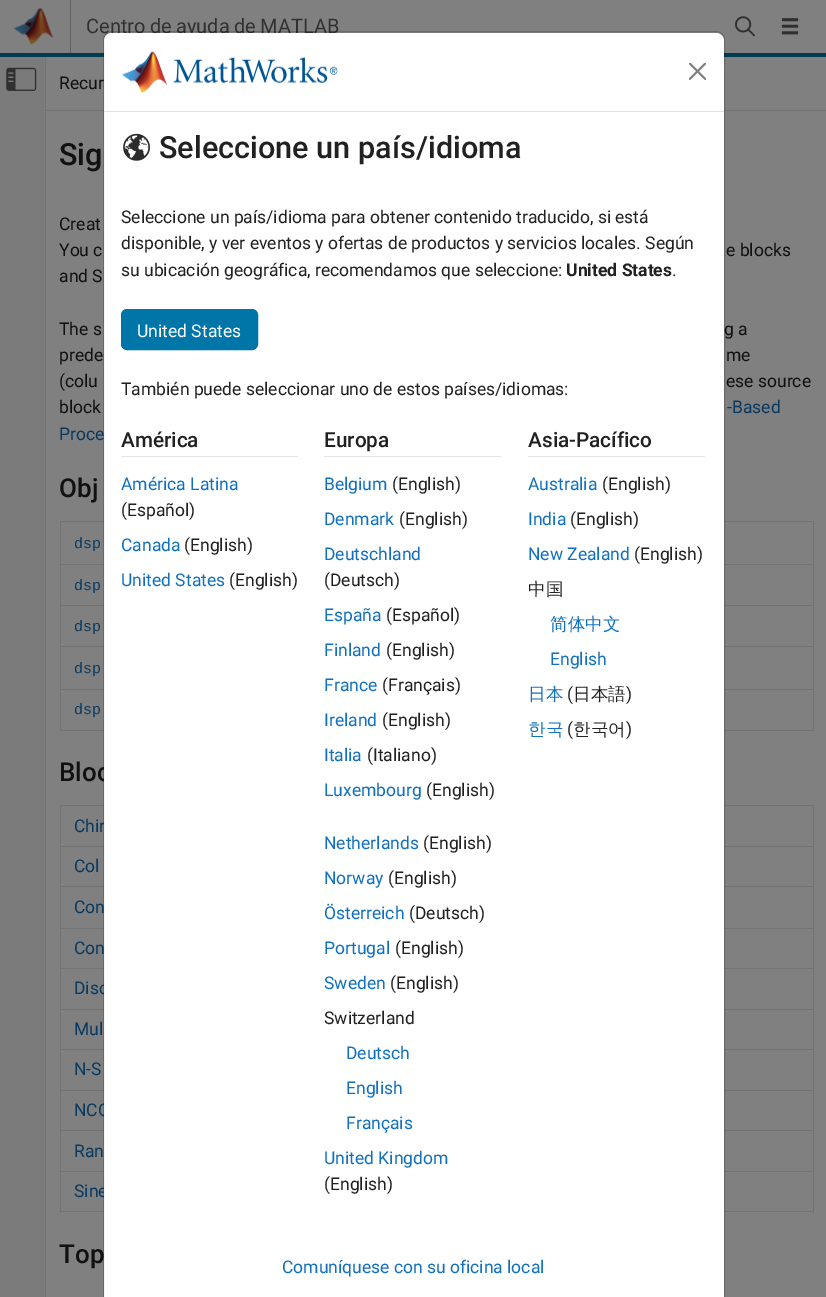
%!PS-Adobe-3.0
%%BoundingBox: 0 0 826 1297
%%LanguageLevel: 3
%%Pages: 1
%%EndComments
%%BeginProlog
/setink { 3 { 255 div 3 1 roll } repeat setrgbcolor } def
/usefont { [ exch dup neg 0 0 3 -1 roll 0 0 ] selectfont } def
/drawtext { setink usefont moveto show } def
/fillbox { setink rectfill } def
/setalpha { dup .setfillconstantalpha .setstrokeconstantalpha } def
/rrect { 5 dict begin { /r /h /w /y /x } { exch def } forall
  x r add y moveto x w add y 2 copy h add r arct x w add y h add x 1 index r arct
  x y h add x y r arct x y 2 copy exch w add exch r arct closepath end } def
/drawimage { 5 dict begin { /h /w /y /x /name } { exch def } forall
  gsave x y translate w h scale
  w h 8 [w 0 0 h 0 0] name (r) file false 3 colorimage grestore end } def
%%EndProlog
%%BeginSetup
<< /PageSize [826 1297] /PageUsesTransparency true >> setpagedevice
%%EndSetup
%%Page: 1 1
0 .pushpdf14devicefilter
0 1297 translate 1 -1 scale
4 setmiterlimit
0 0 826 1297 123 123 123 fillbox
0 0 826 53 128 128 128 fillbox
45 56 1 1241 115 115 115 fillbox
0 53 826 4 0 59 84 fillbox
70 0 1 53 96 96 96 fillbox
(assets/img1.rgb) 13 8 41 37 drawimage
/Roboto-Regular 20 usefont
49 49 49 setink
86 33 moveto -0.5 0 32 (Centro de ayuda de MATLAB) widthshow
(assets/img2.rgb) 735 16 20 21 drawimage
(assets/img3.rgb) 781 18 18 17 drawimage
(assets/img4.rgb) 6 67 31 24 drawimage
46 57 780 53 128 128 128 fillbox
46 110 780 1 115 115 115 fillbox
(Recur) 59 89 /Roboto-Regular 17.5 17 17 17 drawtext
46 111 780 1186 128 128 128 fillbox
(Proce) 59 440 /Roboto-Regular 17.5 9 57 95 drawtext
60 521 754 1 115 115 115 fillbox
60 564 754 1 115 115 115 fillbox
60 605 754 1 115 115 115 fillbox
60 646 754 1 115 115 115 fillbox
60 689 754 1 115 115 115 fillbox
60 730 754 1 115 115 115 fillbox
(Bloc) 59 781 /Roboto-Medium 26 17 17 17 drawtext
60 805 754 1 115 115 115 fillbox
(Chir) 74 832 /Roboto-Regular 17.5 9 57 95 drawtext
60 846 754 1 115 115 115 fillbox
60 886 754 1 115 115 115 fillbox
60 928 754 1 115 115 115 fillbox
60 968 754 1 115 115 115 fillbox
(Disc) 74 994 /Roboto-Regular 17.5 9 57 95 drawtext
60 1009 754 1 115 115 115 fillbox
60 1049 754 1 115 115 115 fillbox
60 1090 754 1 115 115 115 fillbox
(NCO) 74 1116 /Roboto-Regular 17.5 9 57 95 drawtext
60 1130 754 1 115 115 115 fillbox
60 1171 754 1 115 115 115 fillbox
60 1211 754 1 115 115 115 fillbox
(Sine) 74 1197 /Roboto-Regular 17.5 9 57 95 drawtext
255 255 255 setink
112 33 moveto 716 33 lineto 720.5 33 724 36.5 724 41 curveto 724 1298 lineto 104 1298 lineto 104 41 lineto 104 36.5 107.5 33 112 33 curveto closepath fill
(g a) 724 335 /Roboto-Regular 17.5 17 17 17 drawtext
(Con) 74 913 /Roboto-Regular 17.5 9 57 95 drawtext
(Con) 74 954 /Roboto-Regular 17.5 9 57 95 drawtext
(Top) 59 1263 /Roboto-Medium 26 17 17 17 drawtext
0.18 setalpha
0 0 0 setink
103.5 31.5 621 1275 8.5 rrect stroke
1 setalpha
104 111 620 1 222 226 230 fillbox
(assets/img5.rgb) 122 51 216 42 drawimage
(assets/img6.rgb) 689 63 17 17 drawimage
(assets/img7.rgb) 123 133 27 28 drawimage
(Seleccione un país/idioma) 159 158 /Roboto-Medium 30.6 33 33 33 drawtext
(Seleccione un país/idioma para obtener contenido traducido, si está) 121 223 /Roboto-Regular 17.5 33 33 33 drawtext
(disponible, y ver eventos y ofertas de productos y servicios locales. Según) 121 249 /Roboto-Regular 17.5 33 33 33 drawtext
(su ubicación geográfica, recomendamos que seleccione:) 121 276 /Roboto-Regular 17.5 33 33 33 drawtext
(United States) 566 276 /Roboto-Bold 17.5 33 33 33 drawtext
(.) 672 276 /Roboto-Regular 17.5 33 33 33 drawtext
0 118 168 setink
121.5 309.5 136 40 5.5 rrect gsave fill grestore
stroke
(United States) 137 337 /Roboto-Regular 17.5 255 255 255 drawtext
(También puede seleccionar uno de estos países/idiomas:) 121 395 /Roboto-Regular 17.5 33 33 33 drawtext
121 456 177 1 230 230 230 fillbox
(América) 121 447 /Roboto-Medium 20.75 33 33 33 drawtext
(América Latina) 121 490 /Roboto-Regular 17.5 17 113 190 drawtext
(\(Español\)) 121 516 /Roboto-Regular 17.5 33 33 33 drawtext
(Canada) 121 551 /Roboto-Regular 17.5 17 113 190 drawtext
(\(English\)) 184 551 /Roboto-Regular 17.5 33 33 33 drawtext
(United States) 121 586 /Roboto-Regular 17.5 17 113 190 drawtext
(\(English\)) 229 586 /Roboto-Regular 17.5 33 33 33 drawtext
324 456 177 1 230 230 230 fillbox
(Europa) 324 447 /Roboto-Medium 20.75 33 33 33 drawtext
(Belgium) 324 490 /Roboto-Regular 17.5 17 113 190 drawtext
(\(English\)) 392 490 /Roboto-Regular 17.5 33 33 33 drawtext
(Denmark) 324 525 /Roboto-Regular 17.5 17 113 190 drawtext
(\(English\)) 399 525 /Roboto-Regular 17.5 33 33 33 drawtext
(Deutschland) 324 560 /Roboto-Regular 17.5 17 113 190 drawtext
(\(Deutsch\)) 324 586 /Roboto-Regular 17.5 33 33 33 drawtext
(España) 324 621 /Roboto-Regular 17.5 17 113 190 drawtext
(\(Español\)) 386 621 /Roboto-Regular 17.5 33 33 33 drawtext
(Finland) 324 656 /Roboto-Regular 17.5 17 113 190 drawtext
(\(English\)) 386 656 /Roboto-Regular 17.5 33 33 33 drawtext
(France) 324 691 /Roboto-Regular 17.5 17 113 190 drawtext
(\(Français\)) 382 691 /Roboto-Regular 17.5 33 33 33 drawtext
(Ireland) 324 726 /Roboto-Regular 17.5 17 113 190 drawtext
(\(English\)) 382 726 /Roboto-Regular 17.5 33 33 33 drawtext
(Italia) 324 761 /Roboto-Regular 17.5 17 113 190 drawtext
(\(Italiano\)) 367 761 /Roboto-Regular 17.5 33 33 33 drawtext
(Luxembourg) 324 796 /Roboto-Regular 17.5 17 113 190 drawtext
(\(English\)) 426 796 /Roboto-Regular 17.5 33 33 33 drawtext
(Netherlands) 324 849 /Roboto-Regular 17.5 17 113 190 drawtext
(\(English\)) 423 849 /Roboto-Regular 17.5 33 33 33 drawtext
(Norway) 324 884 /Roboto-Regular 17.5 17 113 190 drawtext
(\(English\)) 388 884 /Roboto-Regular 17.5 33 33 33 drawtext
(Österreich) 324 919 /Roboto-Regular 17.5 17 113 190 drawtext
(\(Deutsch\)) 409 919 /Roboto-Regular 17.5 33 33 33 drawtext
(Portugal) 324 954 /Roboto-Regular 17.5 17 113 190 drawtext
(\(English\)) 395 954 /Roboto-Regular 17.5 33 33 33 drawtext
(Sweden) 324 989 /Roboto-Regular 17.5 17 113 190 drawtext
(\(English\)) 390 989 /Roboto-Regular 17.5 33 33 33 drawtext
(Switzerland) 324 1024 /Roboto-Regular 17.5 33 33 33 drawtext
(Deutsch) 346 1059 /Roboto-Regular 17.5 17 113 190 drawtext
(English) 346 1094 /Roboto-Regular 17.5 17 113 190 drawtext
(Français) 346 1129 /Roboto-Regular 17.5 17 113 190 drawtext
(United Kingdom) 324 1164 /Roboto-Regular 17.5 17 113 190 drawtext
(\(English\)) 324 1190 /Roboto-Regular 17.5 33 33 33 drawtext
528 456 177 1 230 230 230 fillbox
(Asia-Pacífico) 528 447 /Roboto-Medium 20.75 33 33 33 drawtext
(Australia) 528 490 /Roboto-Regular 17.5 17 113 190 drawtext
(\(English\)) 602 490 /Roboto-Regular 17.5 33 33 33 drawtext
(India) 528 525 /Roboto-Regular 17.5 17 113 190 drawtext
(\(English\)) 570 525 /Roboto-Regular 17.5 33 33 33 drawtext
(New Zealand) 528 560 /Roboto-Regular 17.5 17 113 190 drawtext
(\(English\)) 634 560 /Roboto-Regular 17.5 33 33 33 drawtext
(中国) 528 595 /WenQuanYiZenHei-Medium 17.5 33 33 33 drawtext
(简体中文) 550 630 /WenQuanYiZenHei-Medium 17.5 17 113 190 drawtext
(English) 550 665 /Roboto-Regular 17.5 17 113 190 drawtext
(日本) 528 700 /WenQuanYiZenHei-Medium 17.5 17 113 190 drawtext
(\() 567 700 /Roboto-Regular 17.5 33 33 33 drawtext
(日本語) 573 700 /WenQuanYiZenHei-Medium 17.5 33 33 33 drawtext
(\)) 626 700 /Roboto-Regular 17.5 33 33 33 drawtext
(한국) 528 735 /WenQuanYiZenHei-Medium 17.5 17 113 190 drawtext
(\() 567 735 /Roboto-Regular 17.5 33 33 33 drawtext
(한국어) 573 735 /WenQuanYiZenHei-Medium 17.5 33 33 33 drawtext
(\)) 626 735 /Roboto-Regular 17.5 33 33 33 drawtext
(Comuníquese con su oficina local) 282 1273 /Roboto-Regular 17.5 17 113 190 drawtext
(Sig) 59 165 /Roboto-Medium 30.6 17 17 17 drawtext
(Creat) 59 230 /Roboto-Regular 17.5 17 17 17 drawtext
(You c) 59 256 /Roboto-Regular 17.5 17 17 17 drawtext
(e blocks) 726 256 /Roboto-Regular 17.5 17 17 17 drawtext
(and S) 59 282 /Roboto-Regular 17.5 17 17 17 drawtext
(The s) 59 335 /Roboto-Regular 17.5 17 17 17 drawtext
(prede) 59 361 /Roboto-Regular 17.5 17 17 17 drawtext
(me) 726 361 /Roboto-Regular 17.5 17 17 17 drawtext
(\(colu) 59 387 /Roboto-Regular 17.5 17 17 17 drawtext
(ese source) 726 387 /Roboto-Regular 17.5 17 17 17 drawtext
(block) 59 413 /Roboto-Regular 17.5 17 17 17 drawtext
(-Based) 727 413 /Roboto-Regular 17.5 9 57 95 drawtext
(Obj) 59 497 /Roboto-Medium 26 17 17 17 drawtext
(dsp) 74 548 /LiberationMono-Regular 15 9 57 95 drawtext
(dsp) 74 590 /LiberationMono-Regular 15 9 57 95 drawtext
(dsp) 74 631 /LiberationMono-Regular 15 9 57 95 drawtext
(dsp) 74 673 /LiberationMono-Regular 15 9 57 95 drawtext
60 521 1 210 115 115 115 fillbox
(dsp) 74 714 /LiberationMono-Regular 15 9 57 95 drawtext
813 521 1 210 115 115 115 fillbox
(Col) 74 872 /Roboto-Regular 17.5 9 57 95 drawtext
(Mul) 74 1035 /Roboto-Regular 17.5 9 57 95 drawtext
(N-S) 74 1075 /Roboto-Regular 17.5 9 57 95 drawtext
(Ran) 74 1157 /Roboto-Regular 17.5 9 57 95 drawtext
60 805 1 408 115 115 115 fillbox
813 805 1 408 115 115 115 fillbox
.poppdf14devicefilter showpage
%%EOF
